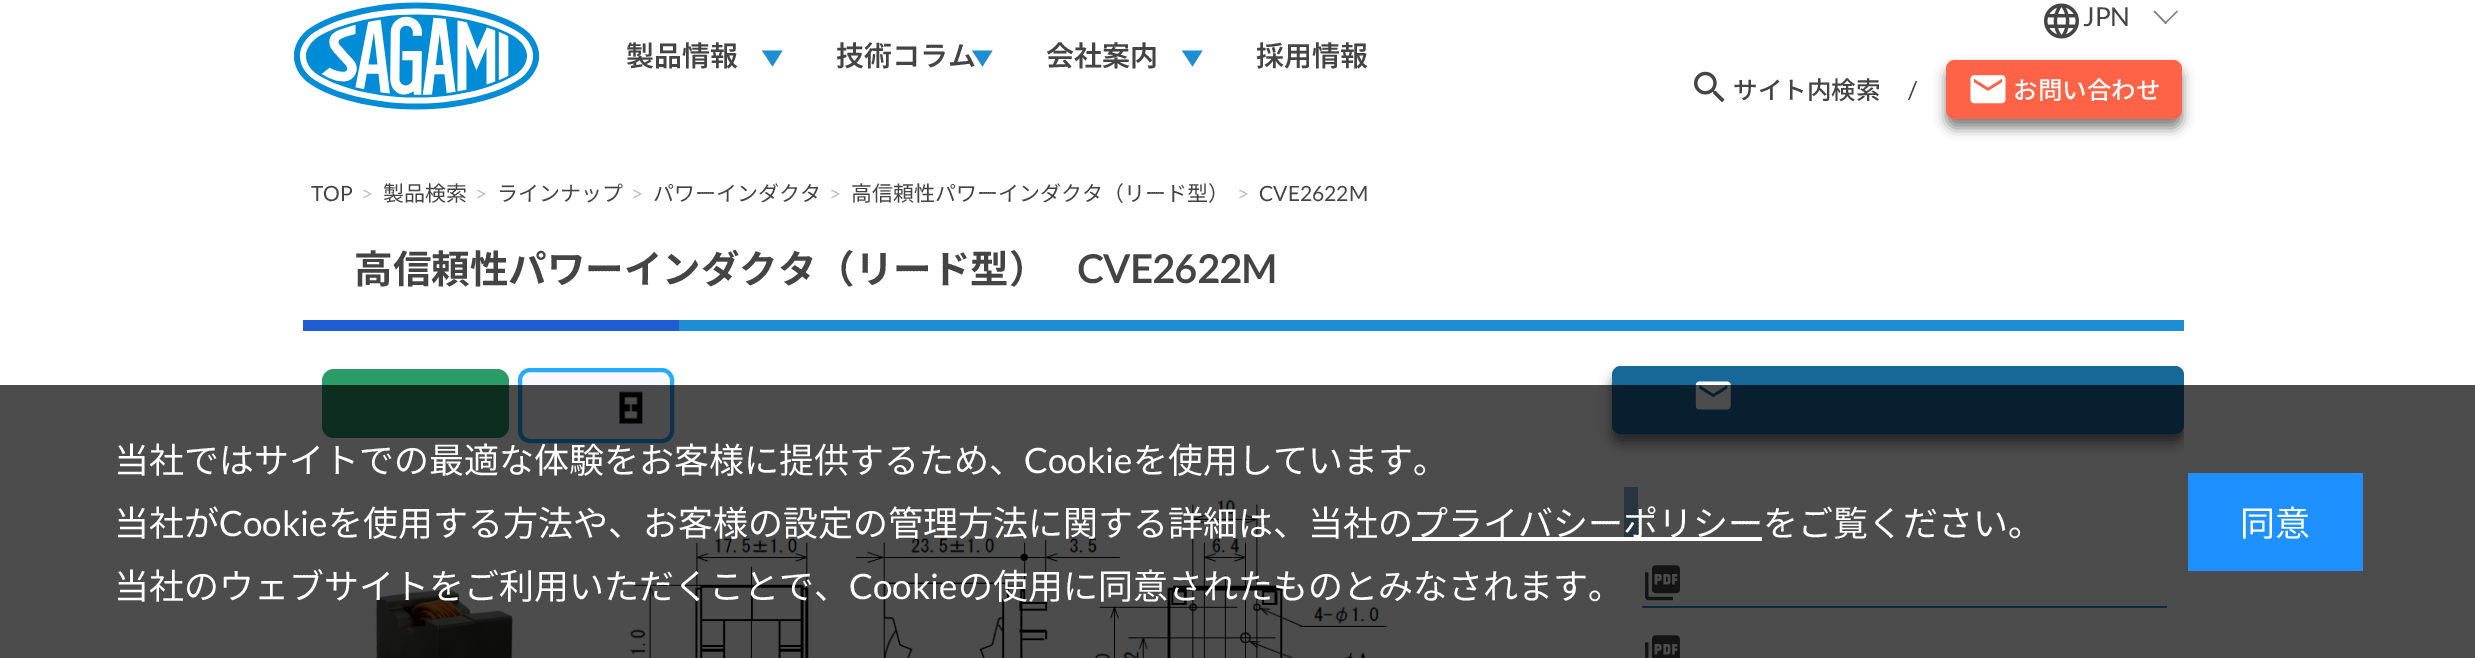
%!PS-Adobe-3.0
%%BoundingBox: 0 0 2475 658
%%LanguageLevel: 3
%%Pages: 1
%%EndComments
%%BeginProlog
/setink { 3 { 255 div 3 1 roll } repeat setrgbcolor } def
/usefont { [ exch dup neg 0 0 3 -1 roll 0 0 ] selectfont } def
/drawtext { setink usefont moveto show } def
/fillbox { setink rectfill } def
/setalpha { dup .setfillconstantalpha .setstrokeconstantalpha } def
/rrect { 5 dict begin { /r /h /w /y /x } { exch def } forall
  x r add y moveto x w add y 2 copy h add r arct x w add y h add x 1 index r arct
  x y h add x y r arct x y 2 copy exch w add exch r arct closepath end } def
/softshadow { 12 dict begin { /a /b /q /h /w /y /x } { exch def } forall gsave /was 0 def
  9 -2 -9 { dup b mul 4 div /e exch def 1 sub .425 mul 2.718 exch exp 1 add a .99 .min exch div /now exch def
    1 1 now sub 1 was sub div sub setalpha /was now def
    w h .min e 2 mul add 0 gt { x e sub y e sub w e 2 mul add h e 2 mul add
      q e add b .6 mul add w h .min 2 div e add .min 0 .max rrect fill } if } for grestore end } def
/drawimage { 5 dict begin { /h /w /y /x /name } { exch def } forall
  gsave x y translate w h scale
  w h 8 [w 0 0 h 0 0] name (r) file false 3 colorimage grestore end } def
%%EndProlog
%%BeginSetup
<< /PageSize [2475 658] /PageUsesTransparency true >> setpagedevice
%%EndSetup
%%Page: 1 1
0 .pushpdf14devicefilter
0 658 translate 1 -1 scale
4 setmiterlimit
0 0 2475 658 255 255 255 fillbox
(assets/img1.rgb) 294 2 245 108 drawimage
(assets/img2.rgb) 2044 3 35 36 drawimage
(JPN) 2083 26 /Lato-Regular 26 68 68 68 drawtext
128 128 128 setink
2178 11.5 moveto 2165.5 24 lineto 2164.5 23 lineto 2177 10.5 lineto closepath fill
2167 23 moveto 2165.5 24 lineto 2153.5 11.5 lineto 2154.5 10.5 lineto closepath fill
(製品情報) 626 66 /NotoSansJP-SemiBold 28 68 68 68 drawtext
31 141 211 setink
782.5 50.5 moveto 772.5 66.5 lineto 762 50.5 lineto closepath fill
(技術コラム) 836 66 /NotoSansJP-SemiBold 28 68 68 68 drawtext
31 141 211 setink
992.5 50.5 moveto 982.5 66.5 lineto 972 50.5 lineto closepath fill
(会社案内) 1046 66 /NotoSansJP-SemiBold 28 68 68 68 drawtext
31 141 211 setink
1202.5 50.5 moveto 1192.5 66.5 lineto 1182 50.5 lineto closepath fill
(採用情報) 1256 66 /NotoSansJP-SemiBold 28 68 68 68 drawtext
(assets/img3.rgb) 1694 71 31 32 drawimage
(サイト内検索) 1733 99 /NotoSansJP-Medium 24.5 68 68 68 drawtext
(/) 1908 99 /Lato-Regular 24.5 68 68 68 drawtext
0 0 0 setink
1946 68 236 60 9 6 0.5 softshadow
255 99 71 setink
1946 60 236 59 9 rrect fill
(assets/img4.rgb) 1970 75 36 29 drawimage
(お問い合わせ) 2013 99 /NotoSansJP-Medium 24.5 255 255 255 drawtext
(TOP) 311 201 /Lato-Regular 21 68 68 68 drawtext
(>) 361 201 /Lato-Regular 21 192 192 192 drawtext
(製品検索) 383 201 /NotoSansJP-Regular 21 68 68 68 drawtext
(>) 475 201 /Lato-Regular 21 192 192 192 drawtext
(ラインナップ) 497 201 /NotoSansJP-Regular 21 68 68 68 drawtext
(>) 631 201 /Lato-Regular 21 192 192 192 drawtext
(パワーインダクタ) 653 201 /NotoSansJP-Regular 21 68 68 68 drawtext
(>) 829 201 /Lato-Regular 21 192 192 192 drawtext
(高信頼性パワーインダクタ（リード型）) 851 201 /NotoSansJP-Regular 21 68 68 68 drawtext
(>) 1237 201 /Lato-Regular 21 192 192 192 drawtext
(CVE2622M) 1259 201 /Lato-Regular 21 68 68 68 drawtext
679 320 1505 11 31 141 211 fillbox
(高信頼性パワーインダクタ（リード型）) 354 283 /NotoSansJP-Bold 38.5 68 68 68 drawtext
(CVE2622M) 1077 283 /Lato-Bold 38.5 68 68 68 drawtext
303 320 376 11 32 92 212 fillbox
43 155 103 setink
322 369 187 69 12 rrect fill
248 248 255 setink
520 370 152 71 10 rrect gsave fill grestore
38 172 255 setink
4 setlinewidth
stroke
(assets/img5.rgb) 618 391 26 34 drawimage
(assets/img6.rgb) 375 588 138 70 drawimage
(assets/img7.rgb) 629 499 758 159 drawimage
gsave
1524 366 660 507 rectclip
0 0 0 setink
1612 375 572 68 9 6 0.5 softshadow
grestore
23 103 153 setink
1612 366 572 68 9 rrect fill
(assets/img8.rgb) 1695 381 36 29 drawimage
1624 487 14 50 127 179 212 fillbox
1642 606 525 2 31 141 211 fillbox
(assets/img9.rgb) 1645 565 35 36 drawimage
(assets/img10.rgb) 1645 635 35 23 drawimage
0.7 setalpha
0 385 2475 273 0 0 0 fillbox
1 setalpha
(当社ではサイトでの最適な体験をお客様に提供するため、) 114 473 /NotoSansJP-Regular 35 255 255 255 drawtext
(Cookie) 1024 473 /Lato-Regular 35 255 255 255 drawtext
(を使用しています。) 1133 473 /NotoSansJP-Regular 35 255 255 255 drawtext
(当社が) 114 536 /NotoSansJP-Regular 35 255 255 255 drawtext
(Cookie) 219 536 /Lato-Regular 35 255 255 255 drawtext
(を使用する方法や、お客様の設定の管理方法に関する詳細は、当社の) 328 536 /NotoSansJP-Regular 35 255 255 255 drawtext
1412 537 350 4 255 255 255 fillbox
(プライバシーポリシーをご覧ください。) 1413 536 /NotoSansJP-Regular 35 255 255 255 drawtext
(当社のウェブサイトをご利用いただくことで、) 114 599 /NotoSansJP-Regular 35 255 255 255 drawtext
(Cookie) 849 599 /Lato-Regular 35 255 255 255 drawtext
(の使用に同意されたものとみなされます。) 958 599 /NotoSansJP-Regular 35 255 255 255 drawtext
2188 473 175 98 30 144 255 fillbox
(同意) 2240 536 /NotoSansJP-Regular 35 255 255 255 drawtext
.poppdf14devicefilter showpage
%%EOF
